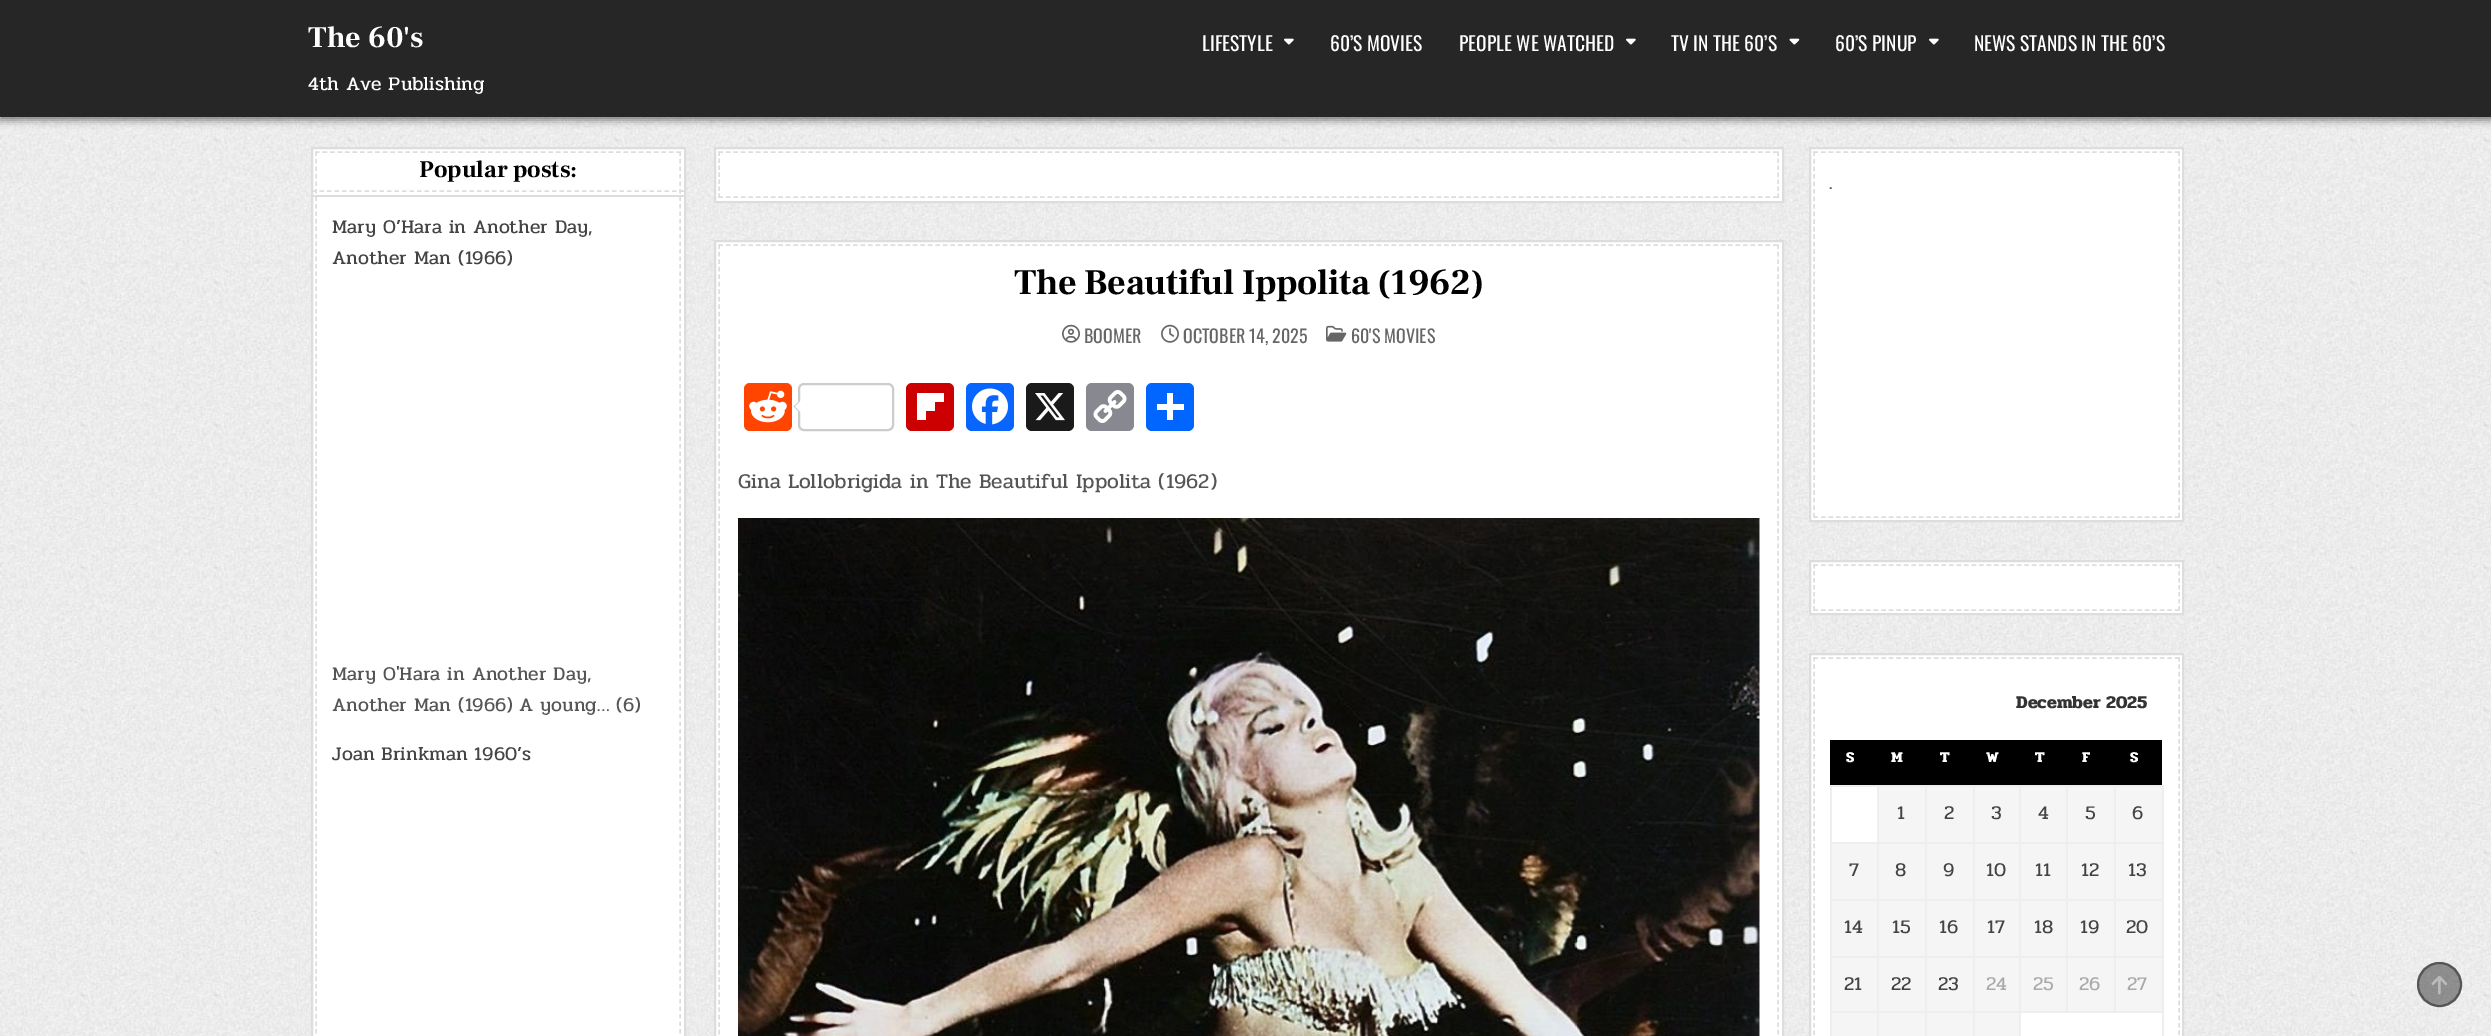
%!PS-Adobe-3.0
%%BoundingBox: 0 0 2491 1036
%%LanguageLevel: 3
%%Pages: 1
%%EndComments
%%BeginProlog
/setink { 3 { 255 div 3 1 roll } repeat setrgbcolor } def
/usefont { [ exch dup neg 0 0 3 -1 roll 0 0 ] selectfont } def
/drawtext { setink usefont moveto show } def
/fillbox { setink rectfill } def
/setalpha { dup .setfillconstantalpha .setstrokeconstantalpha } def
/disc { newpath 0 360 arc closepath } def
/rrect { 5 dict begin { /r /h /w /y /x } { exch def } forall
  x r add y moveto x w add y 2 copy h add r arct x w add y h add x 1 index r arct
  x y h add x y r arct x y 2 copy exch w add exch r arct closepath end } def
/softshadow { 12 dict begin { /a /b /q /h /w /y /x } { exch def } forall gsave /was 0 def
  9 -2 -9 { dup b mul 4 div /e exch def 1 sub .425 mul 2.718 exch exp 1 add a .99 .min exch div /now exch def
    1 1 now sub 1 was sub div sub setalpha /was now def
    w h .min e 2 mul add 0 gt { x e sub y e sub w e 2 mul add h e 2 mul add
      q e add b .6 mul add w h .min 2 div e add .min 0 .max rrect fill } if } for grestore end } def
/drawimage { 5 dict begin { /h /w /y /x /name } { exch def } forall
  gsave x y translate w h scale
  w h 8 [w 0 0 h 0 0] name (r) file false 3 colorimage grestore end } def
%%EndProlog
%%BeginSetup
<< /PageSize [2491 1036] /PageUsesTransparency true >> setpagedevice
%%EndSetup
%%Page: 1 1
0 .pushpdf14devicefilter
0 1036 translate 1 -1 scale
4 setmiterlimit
0 0 2491 1036 255 255 255 fillbox
(assets/img1.rgb) 0 117 2491 919 drawimage
0 0 0 setink
0 3 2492 117 0 4 0.5 softshadow
0 0 2491 117 38 38 38 fillbox
(The 60's) 308 47 /FrankRuhlLibre-Bold 30 255 255 255 drawtext
(4th Ave Publishing) 308 90 /Pridi-Regular 19.5 255 255 255 drawtext
(LIFESTYLE) 1202 51 /Oswald-Regular 19.5 255 255 255 drawtext
(assets/img2.rgb) 1284 38 10 7 drawimage
(60’S MOVIES) 1330 51 /Oswald-Regular 19.5 255 255 255 drawtext
(PEOPLE WE WATCHED) 1459 51 /Oswald-Regular 19.5 255 255 255 drawtext
(assets/img2.rgb) 1626 38 10 7 drawimage
(TV IN THE 60’S) 1671 51 /Oswald-Regular 19.5 255 255 255 drawtext
(assets/img3.rgb) 1789 38 11 7 drawimage
(60’S PINUP) 1835 51 /Oswald-Regular 19.5 255 255 255 drawtext
(assets/img2.rgb) 1929 38 10 7 drawimage
(NEWS STANDS IN THE 60’S) 1974 51 /Oswald-Regular 19.5 255 255 255 drawtext
312 148 moveto 685 148 lineto 685 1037 lineto 312 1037 lineto closepath gsave fill grestore
221 221 221 setink
2 setlinewidth
stroke
1.5 setlinewidth
[4.5 3.03] 0 setdash
315 152 moveto 681 152 lineto stroke
[4.5 3] 0 setdash
680 151.5 moveto 680 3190.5 lineto stroke
316 151.5 moveto 316 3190.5 lineto stroke
312 195 372 2 221 221 221 fillbox
312 191 moveto 684 191 lineto stroke
(Popular posts:) 419 177 /FrankRuhlLibre-Bold 24 0 0 0 drawtext
(Mary O’Hara in Another Day,) 332 233 /Pridi-Regular 19.5 68 68 68 drawtext
(Another Man \(1966\)) 332 264 /Pridi-Regular 19.5 68 68 68 drawtext
(Mary O'Hara in Another Day,) 332 680 /Pridi-Regular 19.5 85 85 85 drawtext
(Another Man \(1966\) A young… \(6\)) 332 711 /Pridi-Regular 19.5 85 85 85 drawtext
(Joan Brinkman 1960’s) 332 760 /Pridi-Regular 19.5 68 68 68 drawtext
255 255 255 setink
715 148 moveto 1783 148 lineto 1783 202 lineto 715 202 lineto closepath gsave fill grestore
221 221 221 setink
2 setlinewidth
[] 0 setdash
stroke
1.5 setlinewidth
[4.5 2.98] 0 setdash
718.5 152 moveto 1779 152 lineto stroke
[4.5 2.5] 0 setdash
1778 151.5 moveto 1778 198 lineto stroke
[4.5 2.98] 0 setdash
718.5 197 moveto 1779 197 lineto stroke
[4.5 2.5] 0 setdash
719 151.5 moveto 719 198 lineto stroke
255 255 255 setink
715 241 moveto 1783 241 lineto 1783 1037 lineto 715 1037 lineto closepath gsave fill grestore
221 221 221 setink
2 setlinewidth
[] 0 setdash
stroke
1.5 setlinewidth
[4.5 2.98] 0 setdash
718.5 245 moveto 1779 245 lineto stroke
1778 244.5 moveto 1778 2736 lineto stroke
719 244.5 moveto 719 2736 lineto stroke
/FrankRuhlLibre-Bold 36 usefont
0 0 0 setink
1014 294 moveto -0.3 0 (The Beautiful Ippolita \(1962\)) ashow
(assets/img4.rgb) 1062 324 18 19 drawimage
(BOOMER) 1084 343 /Oswald-Regular 18 102 102 102 drawtext
(assets/img5.rgb) 1161 324 18 19 drawimage
(OCTOBER 14, 2025) 1183 343 /Oswald-Regular 18 102 102 102 drawtext
(assets/img6.rgb) 1326 325 21 17 drawimage
(60'S MOVIES) 1351 343 /Oswald-Regular 18 102 102 102 drawtext
255 69 0 setink
744 383 48 48 6 rrect fill
(assets/img7.rgb) 749 390 38 33 drawimage
204 204 204 setink
2 setlinewidth
[] 0 setdash
799 384 94 46 5 rrect stroke
799.5 400.5 moveto 799.5 412.5 lineto 793.5 406.5 lineto closepath fill
255 255 255 setink
801 400.5 moveto 801 412.5 lineto 795 406.5 lineto closepath fill
204 0 0 setink
906 383 48 48 6 rrect fill
926 402 9 9 255 255 255 fillbox
926 393 18 9 255 255 255 fillbox
917 393 9 27 255 255 255 fillbox
8 102 255 setink
966 383 48 48 6 rrect fill
(assets/img8.rgb) 972 388 36 37 drawimage
26 26 26 setink
1026 383 48 48 6 rrect fill
(assets/img9.rgb) 1035 393 30 28 drawimage
136 137 144 setink
1086 383 48 48 6 rrect fill
(assets/img10.rgb) 1093 390 34 33 drawimage
1 102 255 setink
1146 383 48 48 6 rrect fill
1167 393 6 27 255 255 255 fillbox
1157 404 27 6 255 255 255 fillbox
(Gina Lollobrigida in The Beautiful Ippolita \(1962\)) 738 488 /Pridi-Regular 21 85 85 85 drawtext
(assets/img11.rgb) 738 518 1022 518 drawimage
255 255 255 setink
1810 148 moveto 2183 148 lineto 2183 521 lineto 1810 521 lineto closepath gsave fill grestore
221 221 221 setink
stroke
1.5 setlinewidth
[4.5 3.03] 0 setdash
1813.5 152 moveto 2179.5 152 lineto stroke
2179 151.5 moveto 2179 517.5 lineto stroke
1813.5 517 moveto 2179.5 517 lineto stroke
1814 151.5 moveto 1814 517.5 lineto stroke
(.) 1829 189 /Pridi-Regular 19.5 85 85 85 drawtext
255 255 255 setink
1810 561 moveto 2183 561 lineto 2183 614 lineto 1810 614 lineto closepath gsave fill grestore
221 221 221 setink
2 setlinewidth
[] 0 setdash
stroke
1.5 setlinewidth
[4.5 3.03] 0 setdash
1813.5 565 moveto 2179.5 565 lineto stroke
[4.5 2.5] 0 setdash
2179 564 moveto 2179 610.5 lineto stroke
[4.5 3.03] 0 setdash
1813.5 610 moveto 2179.5 610 lineto stroke
[4.5 2.5] 0 setdash
1814 564 moveto 1814 610.5 lineto stroke
255 255 255 setink
1810 654 moveto 2183 654 lineto 2183 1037 lineto 1810 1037 lineto closepath gsave fill grestore
221 221 221 setink
2 setlinewidth
[] 0 setdash
stroke
1.5 setlinewidth
[4.5 3.03] 0 setdash
1813.5 658 moveto 2179.5 658 lineto stroke
[4.5 2.97] 0 setdash
2179 657 moveto 2179 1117.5 lineto stroke
1814 657 moveto 1814 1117.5 lineto stroke
(December 2025) 2016 708 /Pridi-Bold 18 51 51 51 drawtext
1830 740 332 45 0 0 0 fillbox
(S) 1846 762 /Pridi-Bold 15 255 255 255 drawtext
(M) 1891 762 /Pridi-Bold 15 255 255 255 drawtext
(T) 1940 762 /Pridi-Bold 15 255 255 255 drawtext
(W) 1986 762 /Pridi-Bold 15 255 255 255 drawtext
(T) 2035 762 /Pridi-Bold 15 255 255 255 drawtext
(F) 2082 762 /Pridi-Bold 15 255 255 255 drawtext
(S) 2130 762 /Pridi-Bold 15 255 255 255 drawtext
2114 785 49 2 238 238 238 fillbox
2114 842 49 2 238 238 238 fillbox
2114 899 49 2 238 238 238 fillbox
2114 956 49 2 238 238 238 fillbox
2019 1011 144 2 238 238 238 fillbox
2114 956 2 57 238 238 238 fillbox
2066 956 49 2 238 238 238 fillbox
2114 899 2 58 238 238 238 fillbox
2066 899 49 2 238 238 238 fillbox
2114 842 2 58 238 238 238 fillbox
2066 842 49 2 238 238 238 fillbox
2114 785 2 58 238 238 238 fillbox
2066 785 49 2 238 238 238 fillbox
2066 956 2 57 238 238 238 fillbox
2019 956 48 2 238 238 238 fillbox
2066 899 2 58 238 238 238 fillbox
2019 899 48 2 238 238 238 fillbox
2066 842 2 58 238 238 238 fillbox
2019 842 48 2 238 238 238 fillbox
2066 785 2 58 238 238 238 fillbox
2019 785 48 2 238 238 238 fillbox
2019 1011 2 25 238 238 238 fillbox
1973 1011 48 2 238 238 238 fillbox
2019 956 2 57 238 238 238 fillbox
1973 956 48 2 238 238 238 fillbox
2019 899 2 58 238 238 238 fillbox
1973 899 48 2 238 238 238 fillbox
2019 842 2 58 238 238 238 fillbox
1973 842 48 2 238 238 238 fillbox
2019 785 2 58 238 238 238 fillbox
1973 785 48 2 238 238 238 fillbox
1973 1011 2 25 238 238 238 fillbox
1925 1011 49 2 238 238 238 fillbox
1973 956 2 57 238 238 238 fillbox
1925 956 49 2 238 238 238 fillbox
1973 899 2 58 238 238 238 fillbox
1925 899 49 2 238 238 238 fillbox
1973 842 2 58 238 238 238 fillbox
1925 842 49 2 238 238 238 fillbox
1973 785 2 58 238 238 238 fillbox
1925 785 49 2 238 238 238 fillbox
1925 1011 2 25 238 238 238 fillbox
1877 1011 49 2 238 238 238 fillbox
1925 956 2 57 238 238 238 fillbox
1877 956 49 2 238 238 238 fillbox
1925 899 2 58 238 238 238 fillbox
1877 899 49 2 238 238 238 fillbox
1925 842 2 58 238 238 238 fillbox
1877 842 49 2 238 238 238 fillbox
1925 785 2 58 238 238 238 fillbox
1877 785 49 2 238 238 238 fillbox
1877 1011 2 25 238 238 238 fillbox
1830 1011 48 2 238 238 238 fillbox
1877 956 2 57 238 238 238 fillbox
1830 956 48 2 238 238 238 fillbox
1877 899 2 58 238 238 238 fillbox
1830 899 48 2 238 238 238 fillbox
1877 842 2 58 238 238 238 fillbox
1830 842 48 2 238 238 238 fillbox
1877 785 2 58 238 238 238 fillbox
1830 785 48 2 238 238 238 fillbox
1830 1011 2 25 238 238 238 fillbox
1830 956 2 57 238 238 238 fillbox
1830 899 2 58 238 238 238 fillbox
1830 842 2 58 238 238 238 fillbox
1830 785 2 58 238 238 238 fillbox
1879 787 46 55 245 245 245 fillbox
(1) 1897 819 /Pridi-Regular 19.5 68 68 68 drawtext
1927 787 46 55 245 245 245 fillbox
(2) 1944 819 /Pridi-Regular 19.5 68 68 68 drawtext
1975 787 44 55 245 245 245 fillbox
(3) 1991 819 /Pridi-Regular 19.5 68 68 68 drawtext
2021 787 45 55 245 245 245 fillbox
(4) 2038 819 /Pridi-Regular 19.5 68 68 68 drawtext
2068 787 46 55 245 245 245 fillbox
(5) 2085 819 /Pridi-Regular 19.5 68 68 68 drawtext
2116 787 46 55 245 245 245 fillbox
2162 1011 2 25 238 238 238 fillbox
2162 956 2 57 238 238 238 fillbox
2162 899 2 58 238 238 238 fillbox
2162 842 2 58 238 238 238 fillbox
2162 785 2 58 238 238 238 fillbox
(6) 2132 819 /Pridi-Regular 19.5 68 68 68 drawtext
1832 844 45 55 245 245 245 fillbox
(7) 1849 876 /Pridi-Regular 19.5 68 68 68 drawtext
1879 844 46 55 245 245 245 fillbox
(8) 1895 876 /Pridi-Regular 19.5 68 68 68 drawtext
1927 844 46 55 245 245 245 fillbox
(9) 1943 876 /Pridi-Regular 19.5 68 68 68 drawtext
1975 844 44 55 245 245 245 fillbox
(10) 1986 876 /Pridi-Regular 19.5 68 68 68 drawtext
2021 844 45 55 245 245 245 fillbox
(11) 2035 876 /Pridi-Regular 19.5 68 68 68 drawtext
2068 844 46 55 245 245 245 fillbox
(12) 2081 876 /Pridi-Regular 19.5 68 68 68 drawtext
2116 844 46 55 245 245 245 fillbox
(13) 2128 876 /Pridi-Regular 19.5 68 68 68 drawtext
1832 901 45 55 245 245 245 fillbox
(14) 1844 933 /Pridi-Regular 19.5 68 68 68 drawtext
1879 901 46 55 245 245 245 fillbox
(15) 1892 933 /Pridi-Regular 19.5 68 68 68 drawtext
1927 901 46 55 245 245 245 fillbox
(16) 1939 933 /Pridi-Regular 19.5 68 68 68 drawtext
1975 901 44 55 245 245 245 fillbox
(17) 1987 933 /Pridi-Regular 19.5 68 68 68 drawtext
2021 901 45 55 245 245 245 fillbox
(18) 2034 933 /Pridi-Regular 19.5 68 68 68 drawtext
2068 901 46 55 245 245 245 fillbox
(19) 2080 933 /Pridi-Regular 19.5 68 68 68 drawtext
2116 901 46 55 245 245 245 fillbox
(20) 2126 933 /Pridi-Regular 19.5 68 68 68 drawtext
1832 958 45 53 245 245 245 fillbox
(21) 1844 990 /Pridi-Regular 19.5 68 68 68 drawtext
1879 958 46 53 245 245 245 fillbox
(22) 1891 990 /Pridi-Regular 19.5 68 68 68 drawtext
1927 958 46 53 245 245 245 fillbox
(23) 1938 990 /Pridi-Regular 19.5 68 68 68 drawtext
1975 958 44 53 245 245 245 fillbox
(24) 1986 990 /Pridi-Regular 19.5 170 170 170 drawtext
2021 958 45 53 245 245 245 fillbox
(25) 2033 990 /Pridi-Regular 19.5 170 170 170 drawtext
2068 958 46 53 245 245 245 fillbox
(26) 2079 990 /Pridi-Regular 19.5 170 170 170 drawtext
2116 958 46 53 245 245 245 fillbox
(27) 2127 990 /Pridi-Regular 19.5 170 170 170 drawtext
1832 1013 45 23 245 245 245 fillbox
1879 1013 46 23 245 245 245 fillbox
1927 1013 46 23 245 245 245 fillbox
1975 1013 44 23 245 245 245 fillbox
0.4 setalpha
0 0 0 setink
2439.5 984.5 22.5 disc fill
2 setlinewidth
[] 0 setdash
2439.5 984.5 21.5 disc stroke
1 setalpha
(assets/img12.rgb) 2431 976 17 19 drawimage
.poppdf14devicefilter showpage
%%EOF
